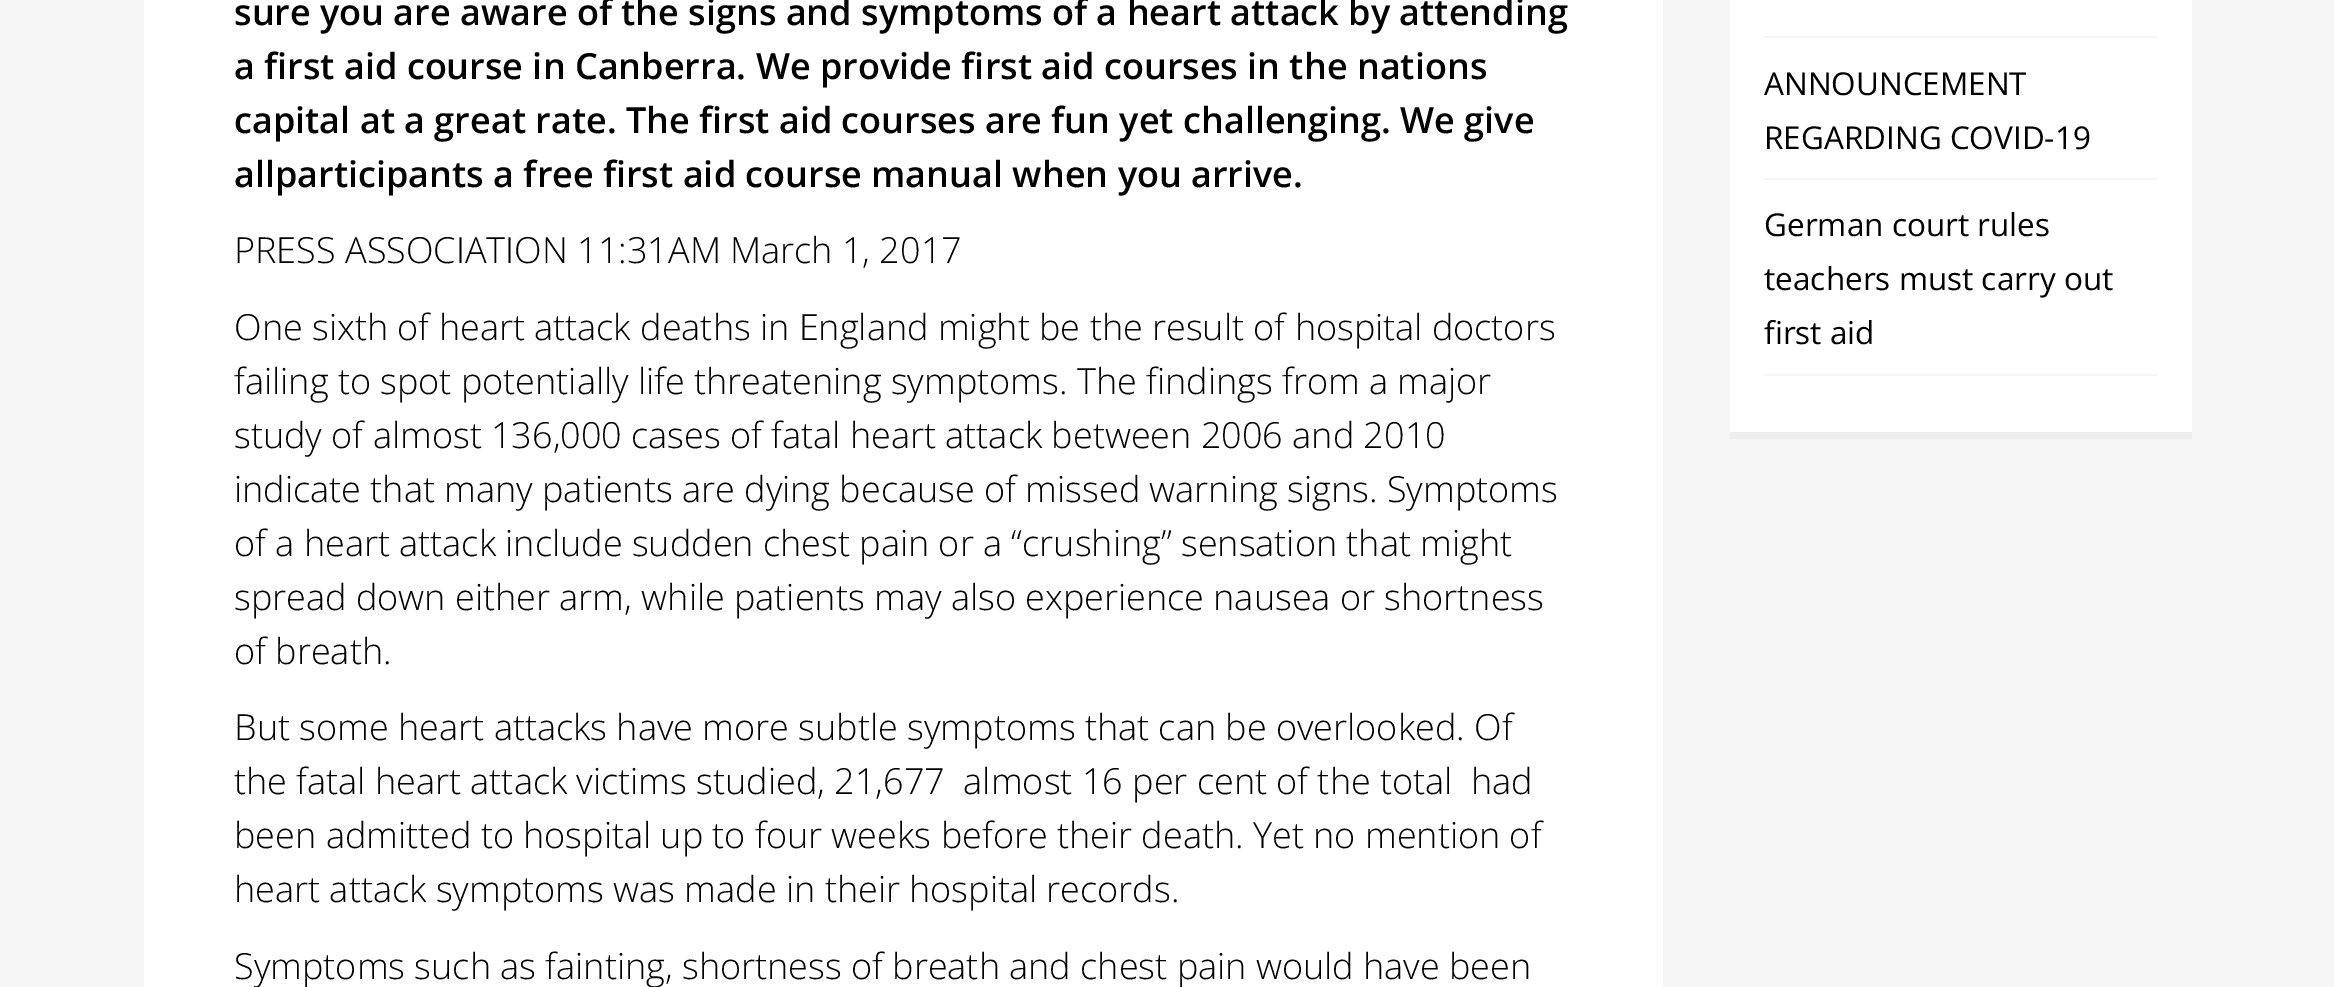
%!PS-Adobe-3.0
%%BoundingBox: 0 0 2334 987
%%LanguageLevel: 3
%%Pages: 1
%%EndComments
%%BeginProlog
/setink { 3 { 255 div 3 1 roll } repeat setrgbcolor } def
/usefont { [ exch dup neg 0 0 3 -1 roll 0 0 ] selectfont } def
/drawtext { setink usefont moveto show } def
/fillbox { setink rectfill } def
%%EndProlog
%%BeginSetup
<< /PageSize [2334 987] >> setpagedevice
%%EndSetup
%%Page: 1 1
0 987 translate 1 -1 scale
4 setmiterlimit
0 0 2334 987 245 245 245 fillbox
144 0 1519 987 255 255 255 fillbox
(sure you are aware of the signs and symptoms of a heart attack by attending) 234 25 /OpenSans-SemiBold 36 0 0 0 drawtext
(a first aid course in Canberra. We provide first aid courses in the nations) 234 79 /OpenSans-SemiBold 36 0 0 0 drawtext
(capital at a great rate. The first aid courses are fun yet challenging. We give) 234 133 /OpenSans-SemiBold 36 0 0 0 drawtext
(allparticipants a free first aid course manual when you arrive.) 234 187 /OpenSans-SemiBold 36 0 0 0 drawtext
(PRESS ASSOCIATION 11:31AM March 1, 2017) 234 263 /OpenSans-Light 36 0 0 0 drawtext
(One sixth of heart attack deaths in England might be the result of hospital doctors) 234 340 /OpenSans-Light 36 0 0 0 drawtext
(failing to spot potentially life threatening symptoms. The findings from a major) 234 394 /OpenSans-Light 36 0 0 0 drawtext
(study of almost 136,000 cases of fatal heart attack between 2006 and 2010) 234 448 /OpenSans-Light 36 0 0 0 drawtext
(indicate that many patients are dying because of missed warning signs. Symptoms) 234 502 /OpenSans-Light 36 0 0 0 drawtext
(of a heart attack include sudden chest pain or a “crushing” sensation that might) 234 556 /OpenSans-Light 36 0 0 0 drawtext
(spread down either arm, while patients may also experience nausea or shortness) 234 610 /OpenSans-Light 36 0 0 0 drawtext
(of breath.) 234 664 /OpenSans-Light 36 0 0 0 drawtext
(But some heart attacks have more subtle symptoms that can be overlooked. Of) 234 740 /OpenSans-Light 36 0 0 0 drawtext
(the fatal heart attack victims studied, 21,677  almost 16 per cent of the total  had) 234 794 /OpenSans-Light 36 0 0 0 drawtext
(been admitted to hospital up to four weeks before their death. Yet no mention of) 234 848 /OpenSans-Light 36 0 0 0 drawtext
(heart attack symptoms was made in their hospital records.) 234 902 /OpenSans-Light 36 0 0 0 drawtext
(Symptoms such as fainting, shortness of breath and chest pain would have been) 234 979 /OpenSans-Light 36 0 0 0 drawtext
1730 0 462 432 255 255 255 fillbox
1730 432 462 7 238 238 238 fillbox
1764 36 394 2 245 245 245 fillbox
1764 178 394 2 245 245 245 fillbox
(ANNOUNCEMENT) 1764 95 /OpenSans-Regular 31.5 0 0 0 drawtext
(REGARDING COVID-19) 1764 149 /OpenSans-Regular 31.5 0 0 0 drawtext
1764 374 394 2 245 245 245 fillbox
(German court rules) 1764 236 /OpenSans-Regular 31.5 0 0 0 drawtext
(teachers must carry out) 1764 290 /OpenSans-Regular 31.5 0 0 0 drawtext
(first aid) 1764 344 /OpenSans-Regular 31.5 0 0 0 drawtext
showpage
%%EOF
